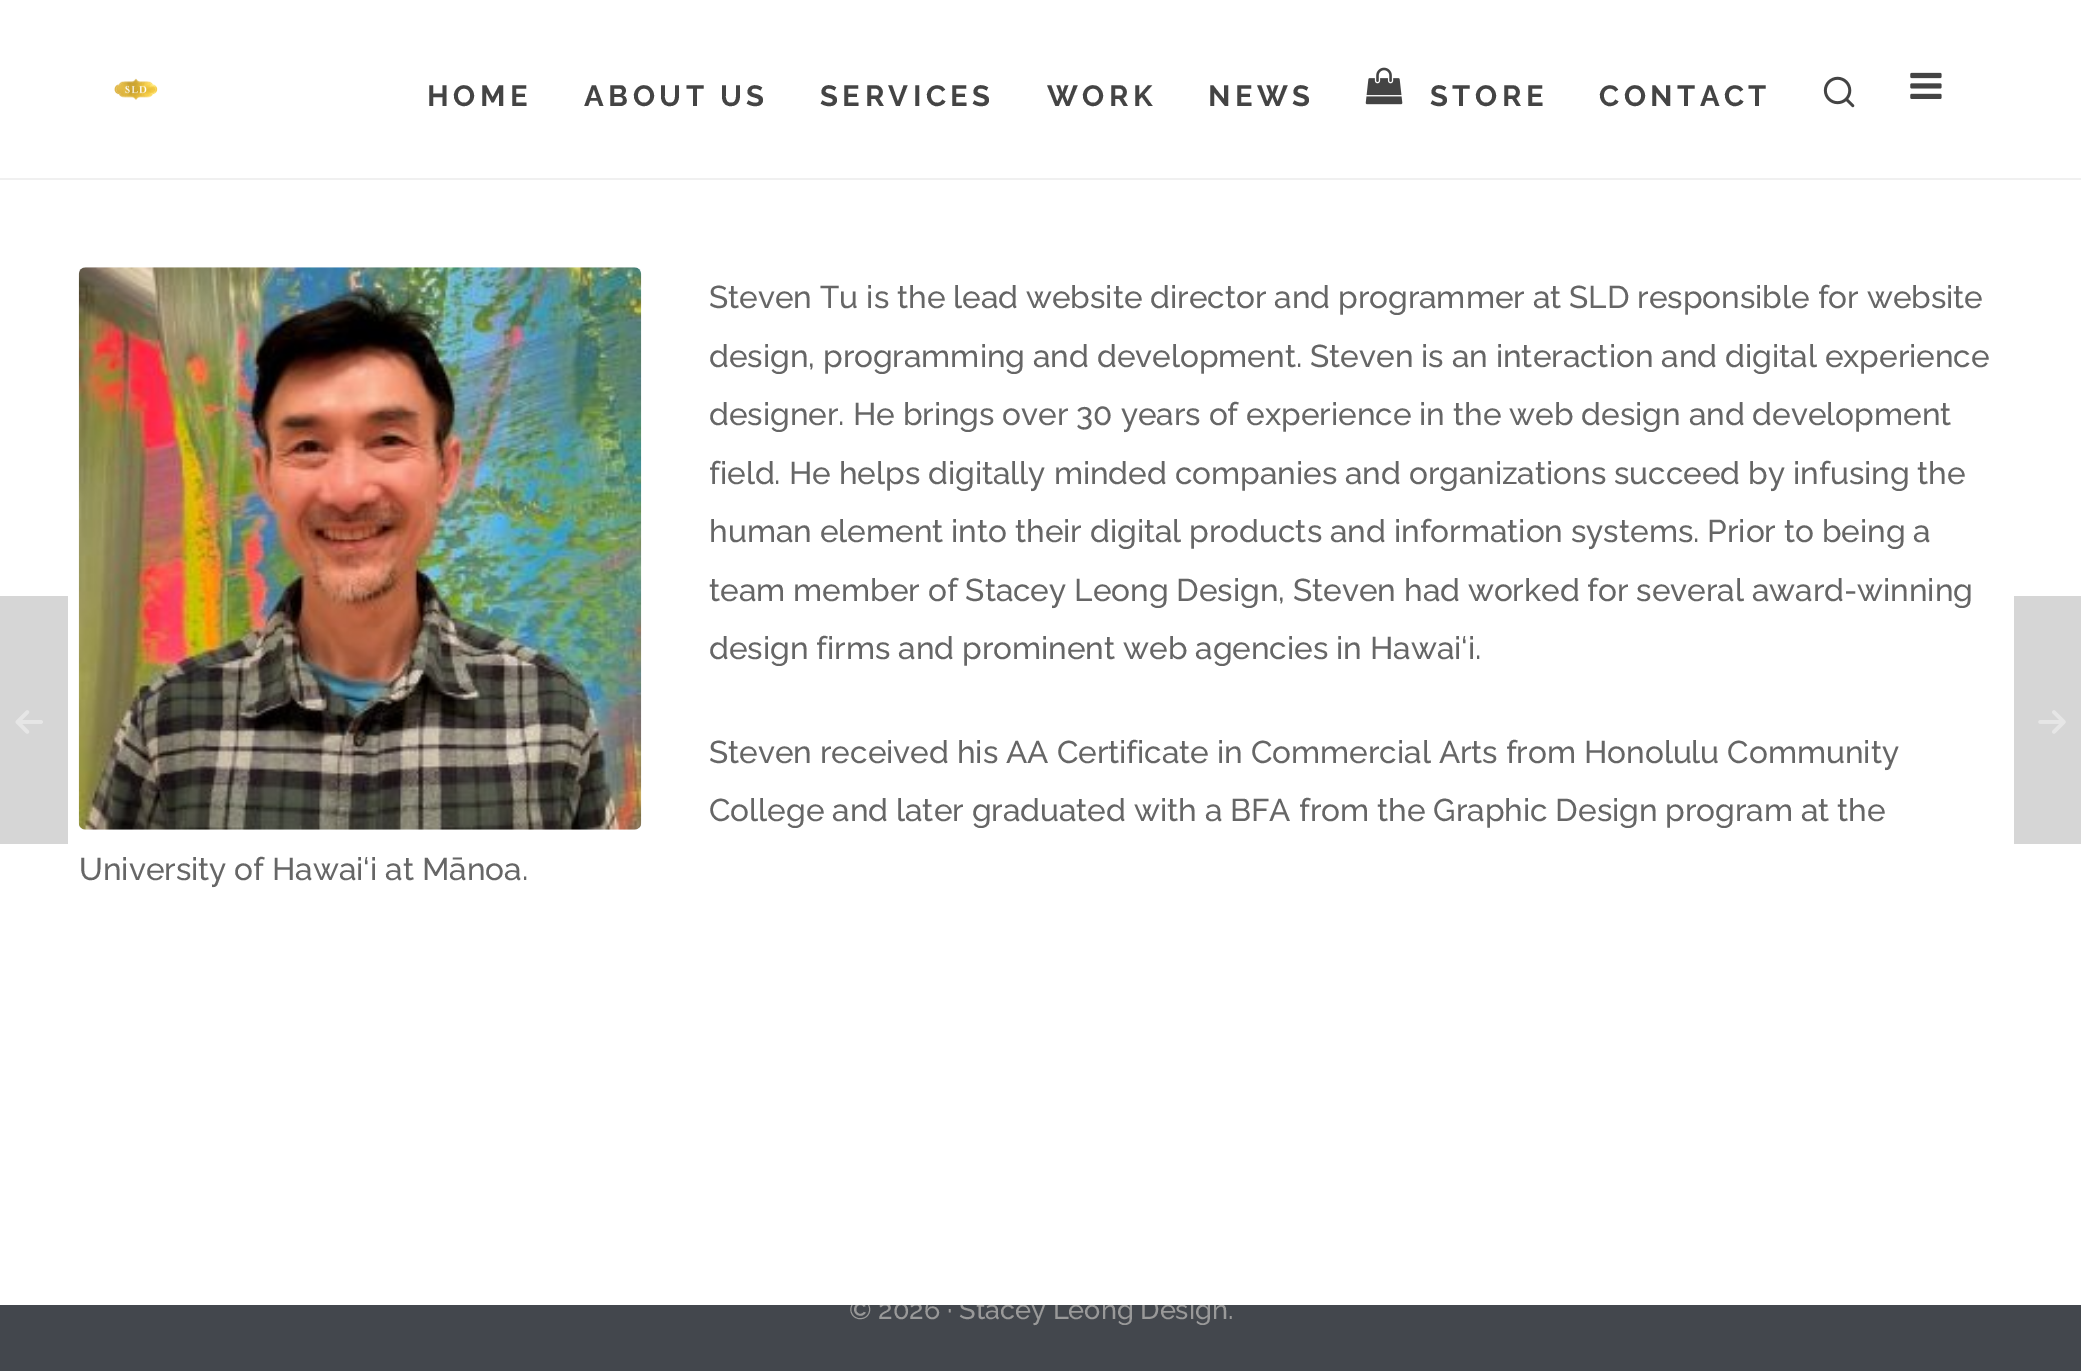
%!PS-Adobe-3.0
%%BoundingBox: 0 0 2081 1371
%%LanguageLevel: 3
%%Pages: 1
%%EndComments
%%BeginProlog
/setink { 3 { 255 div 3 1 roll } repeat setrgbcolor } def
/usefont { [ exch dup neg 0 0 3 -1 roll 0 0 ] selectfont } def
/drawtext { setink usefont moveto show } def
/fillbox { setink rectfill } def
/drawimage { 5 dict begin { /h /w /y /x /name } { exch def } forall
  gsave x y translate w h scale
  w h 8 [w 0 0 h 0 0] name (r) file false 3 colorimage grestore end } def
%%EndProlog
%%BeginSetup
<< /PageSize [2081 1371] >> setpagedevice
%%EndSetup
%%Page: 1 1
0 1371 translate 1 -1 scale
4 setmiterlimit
0 0 2081 1371 67 71 77 fillbox
(© 2026 · Stacey Leong Design.) 849 1319 /Raleway-Medium 27 153 153 153 drawtext
0 0 2081 1305 255 255 255 fillbox
0 178 2081 2 240 240 240 fillbox
(assets/img1.rgb) 114 78 44 22 drawimage
/Raleway-Bold 29.25 usefont
68 68 68 setink
427 106 moveto 4.5 0 (HOME) ashow
584 106 moveto 4.5 0 (ABOUT US) ashow
820 106 moveto 4.5 0 (SERVICES) ashow
1047 106 moveto 4.5 0 (WORK) ashow
1208 106 moveto 4.5 0 (NEWS) ashow
(assets/img2.rgb) 1365 67 38 38 drawimage
1430 106 moveto 4.5 0 (STORE) ashow
1599 106 moveto 4.5 0 (CONTACT) ashow
(assets/img3.rgb) 1823 76 32 32 drawimage
(assets/img4.rgb) 1910 72 32 27 drawimage
(assets/img5.rgb) 78 267 564 563 drawimage
(Steven Tu is the lead website director and programmer at SLD responsible for website) 709 308 /Raleway-Medium 31.5 102 102 102 drawtext
(design, programming and development. Steven is an interaction and digital experience) 709 367 /Raleway-Medium 31.5 102 102 102 drawtext
(designer. He brings over 30 years of experience in the web design and development) 709 425 /Raleway-Medium 31.5 102 102 102 drawtext
(field. He helps digitally minded companies and organizations succeed by infusing the) 709 484 /Raleway-Medium 31.5 102 102 102 drawtext
(human element into their digital products and information systems. Prior to being a) 709 542 /Raleway-Medium 31.5 102 102 102 drawtext
(team member of Stacey Leong Design, Steven had worked for several award-winning) 709 601 /Raleway-Medium 31.5 102 102 102 drawtext
(design firms and prominent web agencies in Hawai‘i.) 709 659 /Raleway-Medium 31.5 102 102 102 drawtext
(Steven received his AA Certificate in Commercial Arts from Honolulu Community) 709 763 /Raleway-Medium 31.5 102 102 102 drawtext
(College and later graduated with a BFA from the Graphic Design program at the) 709 821 /Raleway-Medium 31.5 102 102 102 drawtext
(University of Hawai‘i at Mānoa.) 79 880 /Raleway-Medium 31.5 102 102 102 drawtext
0 596 68 248 214 214 214 fillbox
(assets/img6.rgb) 15 710 28 24 drawimage
2014 596 67 248 214 214 214 fillbox
(assets/img7.rgb) 2038 710 28 24 drawimage
showpage
%%EOF
